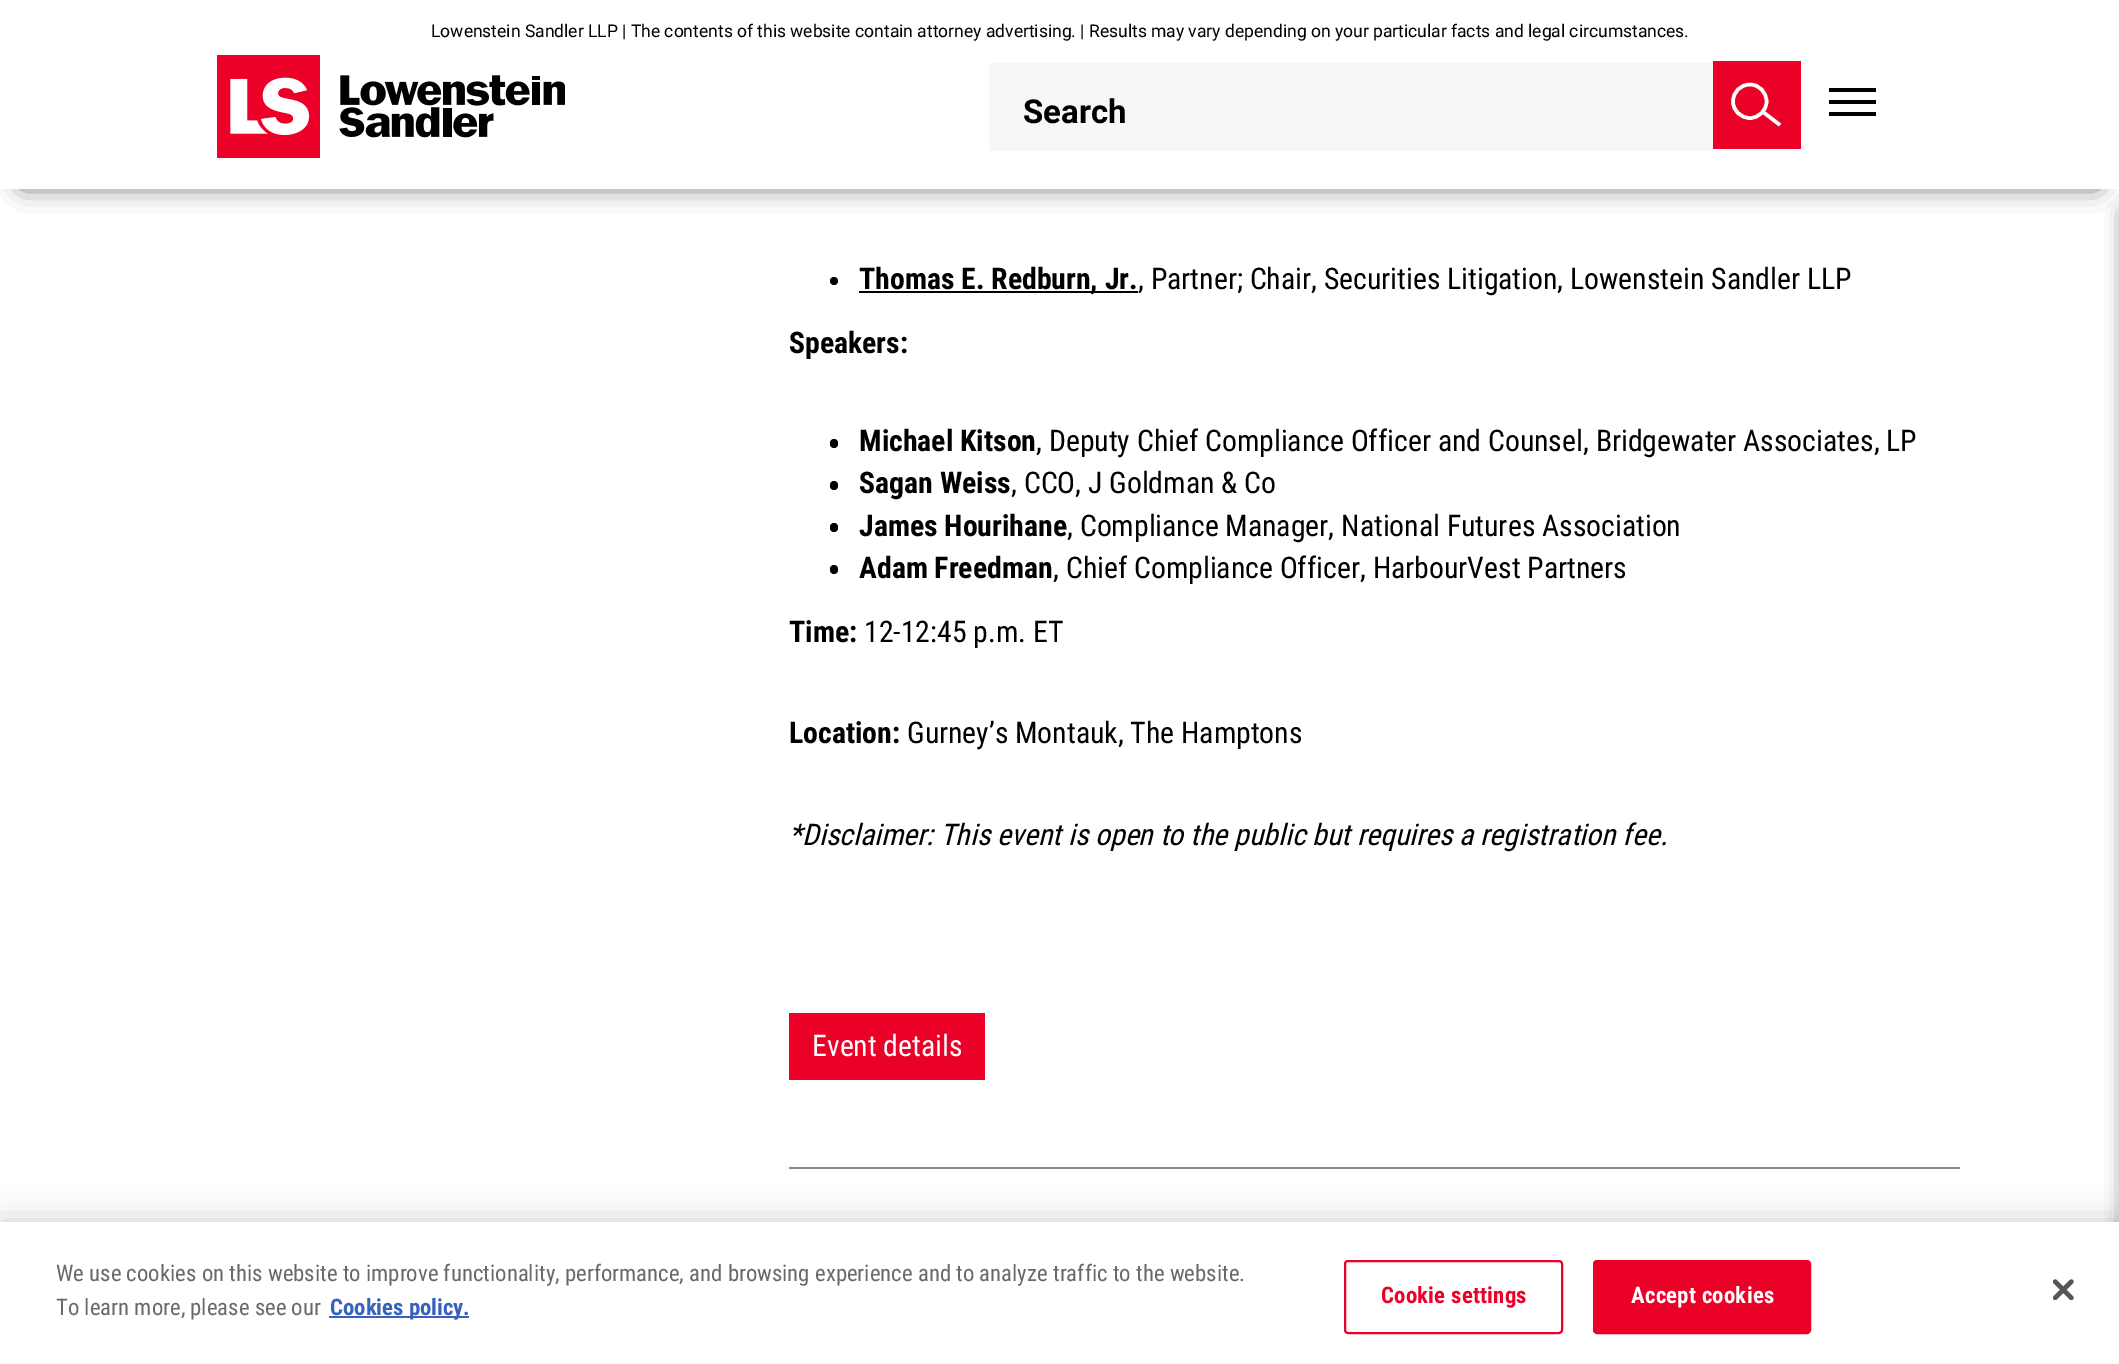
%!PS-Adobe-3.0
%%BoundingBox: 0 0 2119 1364
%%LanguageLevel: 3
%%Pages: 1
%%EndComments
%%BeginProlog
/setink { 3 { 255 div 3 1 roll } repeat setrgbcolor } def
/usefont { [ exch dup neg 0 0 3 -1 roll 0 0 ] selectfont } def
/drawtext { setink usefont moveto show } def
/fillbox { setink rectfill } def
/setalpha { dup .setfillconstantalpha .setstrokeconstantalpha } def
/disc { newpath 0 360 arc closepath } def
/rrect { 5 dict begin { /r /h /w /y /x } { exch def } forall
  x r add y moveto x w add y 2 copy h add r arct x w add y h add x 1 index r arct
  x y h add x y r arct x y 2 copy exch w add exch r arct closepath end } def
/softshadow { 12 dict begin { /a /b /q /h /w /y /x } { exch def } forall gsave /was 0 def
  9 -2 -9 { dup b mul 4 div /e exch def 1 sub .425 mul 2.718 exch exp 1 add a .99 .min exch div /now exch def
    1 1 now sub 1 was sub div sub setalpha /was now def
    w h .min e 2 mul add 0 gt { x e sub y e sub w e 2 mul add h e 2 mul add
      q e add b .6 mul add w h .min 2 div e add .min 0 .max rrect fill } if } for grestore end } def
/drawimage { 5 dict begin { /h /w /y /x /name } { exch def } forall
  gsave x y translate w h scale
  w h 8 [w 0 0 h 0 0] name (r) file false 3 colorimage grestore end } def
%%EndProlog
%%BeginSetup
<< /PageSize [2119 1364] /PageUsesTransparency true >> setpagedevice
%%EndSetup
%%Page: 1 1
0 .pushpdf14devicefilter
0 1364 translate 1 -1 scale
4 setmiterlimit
0 0 2119 1364 255 255 255 fillbox
0 0 0 setink
23 40 2074 144 0 13 0.75 softshadow
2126 212 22 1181 0 9.5 0.75 softshadow
0 11 2119 178 255 255 255 fillbox
(Lowenstein Sandler LLP | The contents of this website contain attorney advertising. | Results may vary depending on your particular facts and legal circumstances.) 431 37 /Roboto-Regular 17.5 0 0 0 drawtext
(assets/img1.rgb) 217 55 348 103 drawimage
989 63 724 88 247 247 247 fillbox
(Search) 1023 123 /Roboto-Bold 33 0 0 0 drawtext
1713 61 88 88 235 0 40 fillbox
255 255 255 setink
3.5 setlinewidth
1750 118 moveto 1759 118 1766.5 110.5 1766.5 101.5 curveto 1766.5 92 1759 84.5 1750 84.5 curveto 1740.5 84.5 1733 92 1733 101.5 curveto 1733 110.5 1740.5 118 1750 118 curveto closepath 1763 112 moveto 1780 125 lineto stroke
1829 88 47 4 0 0 0 fillbox
1829 112 47 4 0 0 0 fillbox
1829 100 47 4 0 0 0 fillbox
834 281 4 disc fill
859 291 279 2 0 0 0 fillbox
(Thomas E. Redburn, Jr.) 859 289 /RobotoCondensed-Bold 29.75 0 0 0 drawtext
(, Partner; Chair, Securities Litigation, Lowenstein Sandler LLP) 1138 289 /RobotoCondensed-Regular 29.75 0 0 0 drawtext
(Speakers:) 789 353 /RobotoCondensed-Bold 29.75 0 0 0 drawtext
830 439 8 9 4 rrect fill
(Michael Kitson) 859 451 /RobotoCondensed-Bold 29.75 0 0 0 drawtext
(, Deputy Chief Compliance Officer and Counsel, Bridgewater Associates, LP) 1036 451 /RobotoCondensed-Regular 29.75 0 0 0 drawtext
830 481 8 9 4 rrect fill
(Sagan Weiss) 859 493 /RobotoCondensed-Bold 29.75 0 0 0 drawtext
(, CCO, J Goldman & Co) 1011 493 /RobotoCondensed-Regular 29.75 0 0 0 drawtext
830 523 8 9 4 rrect fill
(James Hourihane) 859 536 /RobotoCondensed-Bold 29.75 0 0 0 drawtext
(, Compliance Manager, National Futures Association) 1067 536 /RobotoCondensed-Regular 29.75 0 0 0 drawtext
830 565 8 9 4 rrect fill
(Adam Freedman) 859 578 /RobotoCondensed-Bold 29.75 0 0 0 drawtext
(, Chief Compliance Officer, HarbourVest Partners) 1053 578 /RobotoCondensed-Regular 29.75 0 0 0 drawtext
(Time:) 789 642 /RobotoCondensed-Bold 29.75 0 0 0 drawtext
(12-12:45 p.m. ET) 864 642 /RobotoCondensed-Regular 29.75 0 0 0 drawtext
(Location:) 789 743 /RobotoCondensed-Bold 29.75 0 0 0 drawtext
(Gurney’s Montauk, The Hamptons) 907 743 /RobotoCondensed-Regular 29.75 0 0 0 drawtext
(*Disclaimer: This event is open to the public but requires a registration fee.) 789 845 /RobotoCondensed-Italic 29.75 0 0 0 drawtext
789 1013 196 67 235 0 40 fillbox
(Event details) 812 1056 /RobotoCondensed-Regular 29.75 255 255 255 drawtext
789 1167 1171 2 136 136 136 fillbox
0 0 0 setink
0 1222 2119 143 0 16 0.2 softshadow
0 1222 2119 142 255 255 255 fillbox
(We use cookies on this website to improve functionality, performance, and browsing experience and to analyze traffic to the website.) 56 1281 /RobotoCondensed-Regular 22.75 105 105 105 drawtext
(To learn more, please see our) 56 1315 /RobotoCondensed-Regular 22.75 105 105 105 drawtext
329 1316 140 2 56 96 190 fillbox
(Cookies policy.) 330 1315 /RobotoCondensed-Bold 22.75 56 96 190 drawtext
235 0 40 setink
2 setlinewidth
1345 1261 217 72 3 rrect stroke
1381 1303 moveto 0.25 0 (Cookie settings) ashow
1594 1261 216 72 3 rrect gsave fill grestore
stroke
255 255 255 setink
1631 1303 moveto 0.25 0 (Accept cookies) ashow
(assets/img2.rgb) 2053 1279 21 21 drawimage
.poppdf14devicefilter showpage
%%EOF
